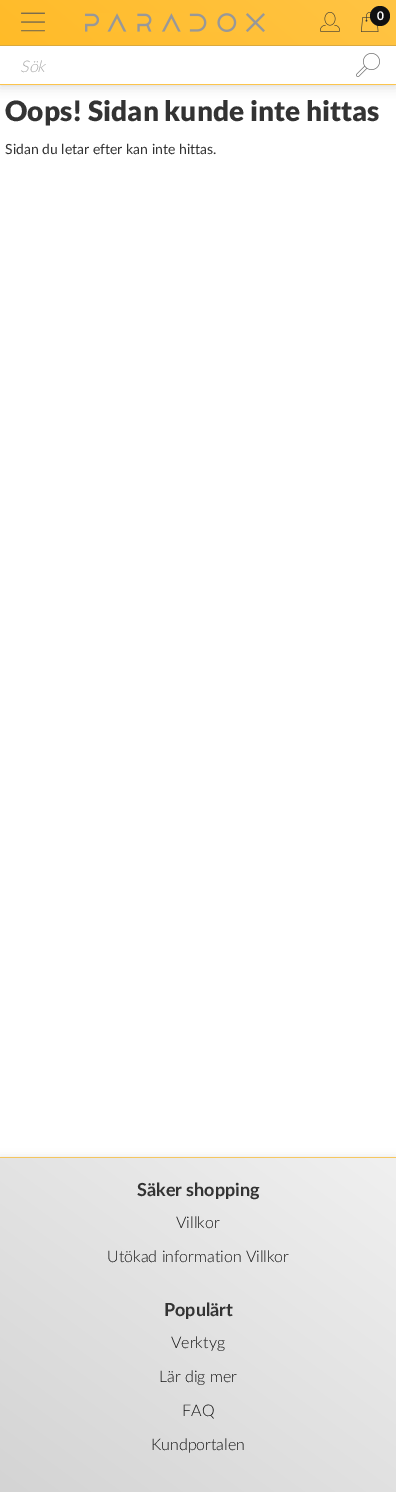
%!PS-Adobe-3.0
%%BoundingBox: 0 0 396 1492
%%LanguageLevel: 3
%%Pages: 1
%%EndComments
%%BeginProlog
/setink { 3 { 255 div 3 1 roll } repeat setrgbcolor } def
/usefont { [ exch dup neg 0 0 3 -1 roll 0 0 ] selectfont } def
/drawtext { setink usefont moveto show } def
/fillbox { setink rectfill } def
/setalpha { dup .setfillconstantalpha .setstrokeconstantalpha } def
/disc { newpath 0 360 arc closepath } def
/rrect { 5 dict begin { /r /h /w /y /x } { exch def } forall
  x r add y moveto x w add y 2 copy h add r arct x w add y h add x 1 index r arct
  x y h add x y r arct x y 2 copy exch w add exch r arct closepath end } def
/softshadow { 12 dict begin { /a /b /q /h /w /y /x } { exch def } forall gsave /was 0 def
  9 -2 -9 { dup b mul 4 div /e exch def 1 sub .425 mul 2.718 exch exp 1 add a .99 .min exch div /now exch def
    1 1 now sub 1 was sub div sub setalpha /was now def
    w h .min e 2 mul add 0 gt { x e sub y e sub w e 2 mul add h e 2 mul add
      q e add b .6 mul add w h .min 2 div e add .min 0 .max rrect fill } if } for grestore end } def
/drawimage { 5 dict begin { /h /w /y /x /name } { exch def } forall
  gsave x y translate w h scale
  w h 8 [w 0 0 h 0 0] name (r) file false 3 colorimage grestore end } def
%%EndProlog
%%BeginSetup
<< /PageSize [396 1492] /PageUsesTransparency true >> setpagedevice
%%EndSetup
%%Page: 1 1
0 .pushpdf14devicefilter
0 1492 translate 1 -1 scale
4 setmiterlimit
0 0 396 1492 255 255 255 fillbox
17 17 17 setink
0 0 396 85 0 6 0.2 softshadow
gsave 0 84 moveto 396 84 lineto 396 85 lineto 0 85 lineto closepath clip newpath
<< /ShadingType 2 /ColorSpace /DeviceRGB /Coords [96 248 300 3.9] /Extend [true true] /Function << /FunctionType 2 /Domain [0 1] /C0 [0.988 0.769 0.298] /C1 [0.992 0.776 0.306] /N 1 >> >> shfill grestore
gsave 0 0 moveto 396 0 lineto 396 45 lineto 0 45 lineto closepath clip newpath
<< /ShadingType 2 /ColorSpace /DeviceRGB /Coords [96 164 300 -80] /Extend [true true] /Function << /FunctionType 2 /Domain [0 1] /C0 [1 0.729 0.145] /C1 [1 0.769 0.267] /N 1 >> >> shfill grestore
gsave 0 45 moveto 396 45 lineto 396 46 lineto 0 46 lineto closepath clip newpath
<< /ShadingType 2 /ColorSpace /DeviceRGB /Coords [96 164 300 -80] /Extend [true true] /Function << /FunctionType 2 /Domain [0 1] /C0 [0.855 0.663 0.239] /C1 [0.855 0.667 0.255] /N 1 >> >> shfill grestore
(assets/img1.rgb) 21 12 24 20 drawimage
(assets/img2.rgb) 320 12 20 20 drawimage
(assets/img3.rgb) 361 12 18 20 drawimage
380 16 10 disc fill
(0) 377 20 /Lato-Bold 12 255 255 255 drawtext
(assets/img4.rgb) 85 13 180 19 drawimage
0 46 396 38 255 255 255 fillbox
(Sök) 20 72 /Lato-LightItalic 16 170 170 170 drawtext
(assets/img5.rgb) 356 53 24 24 drawimage
(Oops! Sidan kunde inte hittas) 5 121 /Lato-Black 28 51 51 51 drawtext
(Sidan du letar efter kan inte hittas.) 5 154 /Lato-Regular 14 51 51 51 drawtext
17 17 17 setink
0 1157 396 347 0 4 0.1 softshadow
gsave 0 1157 moveto 396 1157 lineto 396 1158 lineto 0 1158 lineto closepath clip newpath
<< /ShadingType 2 /ColorSpace /DeviceRGB /Coords [-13 1149 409 569] /Extend [true true] /Function << /FunctionType 2 /Domain [0 1] /C0 [0.957 0.773 0.369] /C1 [0.988 0.804 0.4] /N 1 >> >> shfill grestore
gsave 0 1158 moveto 396 1158 lineto 396 1492 lineto 0 1492 lineto closepath clip newpath
<< /ShadingType 2 /ColorSpace /DeviceRGB /Coords [-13 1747 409 1167] /Extend [true true] /Function << /FunctionType 2 /Domain [0 1] /C0 [0.784 0.784 0.784] /C1 [0.941 0.941 0.941] /N 1 >> >> shfill grestore
(Säker shopping) 137 1196 /Lato-Bold 18 51 51 51 drawtext
(Villkor) 176 1228 /Lato-Light 16 17 17 17 drawtext
(Utökad information Villkor) 107 1262 /Lato-Light 16 17 17 17 drawtext
(Populärt) 164 1316 /Lato-Bold 18 51 51 51 drawtext
(Verktyg) 171 1348 /Lato-Light 16 17 17 17 drawtext
(Lär dig mer) 159 1382 /Lato-Light 16 17 17 17 drawtext
(FAQ) 182 1416 /Lato-Light 16 17 17 17 drawtext
(Kundportalen) 151 1450 /Lato-Light 16 17 17 17 drawtext
.poppdf14devicefilter showpage
%%EOF
